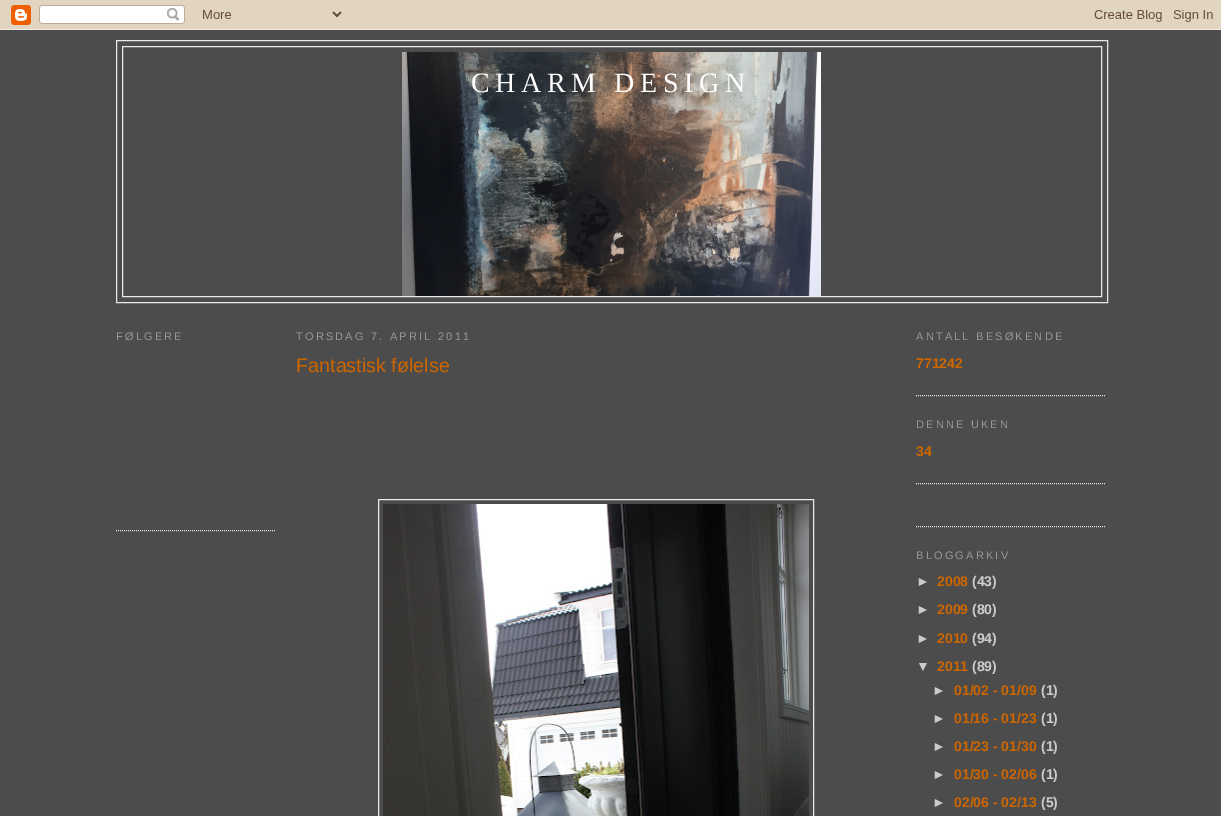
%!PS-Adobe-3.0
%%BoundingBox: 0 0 1221 816
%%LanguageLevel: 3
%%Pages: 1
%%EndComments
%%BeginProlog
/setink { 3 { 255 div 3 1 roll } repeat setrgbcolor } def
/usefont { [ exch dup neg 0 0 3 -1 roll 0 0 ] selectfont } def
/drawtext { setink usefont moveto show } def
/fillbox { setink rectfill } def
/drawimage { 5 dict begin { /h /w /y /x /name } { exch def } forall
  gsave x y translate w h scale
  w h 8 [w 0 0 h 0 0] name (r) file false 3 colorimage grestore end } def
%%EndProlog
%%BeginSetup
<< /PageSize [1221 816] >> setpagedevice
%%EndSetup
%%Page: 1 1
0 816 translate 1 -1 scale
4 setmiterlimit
0 0 1221 816 76 76 76 fillbox
(assets/img1.rgb) 0 0 1221 30 drawimage
233 233 233 setink
116.5 40.5 991 262 rectstroke
122.5 46.5 979 250 rectstroke
(assets/img2.rgb) 402 52 419 244 drawimage
/LiberationSerif-Regular 28 usefont
255 255 255 setink
471 92 moveto 5.6 0 (CHARM DESIGN) ashow
233 233 233 setink
[1 1] 0 setdash
116 530.5 moveto 276 530.5 lineto stroke
/LiberationSans-Regular 11 usefont
153 153 153 setink
116 340 moveto 2.2 0 (FØLGERE) ashow
296 340 moveto 2.2 0 (TORSDAG 7. APRIL 2011) ashow
(Fantastisk følelse) 296 372 /LiberationSans-Regular 19.75 204 102 0 drawtext
233 233 233 setink
[] 0 setdash
378.5 499.5 435 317 rectstroke
(assets/img3.rgb) 383 504 426 312 drawimage
[1 1] 0 setdash
916 395.5 moveto 1106 395.5 lineto stroke
/LiberationSans-Regular 11 usefont
153 153 153 setink
916 340 moveto 2.2 0 (ANTALL BESØKENDE) ashow
(771242) 916 368 /LiberationSans-Bold 14 204 102 0 drawtext
233 233 233 setink
916 483.5 moveto 1106 483.5 lineto stroke
/LiberationSans-Regular 11 usefont
153 153 153 setink
916 428 moveto 2.2 0 (DENNE UKEN) ashow
(34) 916 456 /LiberationSans-Bold 14 204 102 0 drawtext
233 233 233 setink
916 526.5 moveto 1106 526.5 lineto stroke
/LiberationSans-Regular 11 usefont
153 153 153 setink
916 559 moveto 2.2 0 (BLOGGARKIV) ashow
(►) 916 586 /LiberationSans-Bold 14 204 204 204 drawtext
(2008) 937 586 /LiberationSans-Bold 14 204 102 0 drawtext
(\(43\)) 972 586 /LiberationSans-Bold 14 204 204 204 drawtext
(►) 916 614 /LiberationSans-Bold 14 204 204 204 drawtext
(2009) 937 614 /LiberationSans-Bold 14 204 102 0 drawtext
(\(80\)) 972 614 /LiberationSans-Bold 14 204 204 204 drawtext
(►) 916 643 /LiberationSans-Bold 14 204 204 204 drawtext
(2010) 937 643 /LiberationSans-Bold 14 204 102 0 drawtext
(\(94\)) 972 643 /LiberationSans-Bold 14 204 204 204 drawtext
(▼) 916 671 /LiberationSans-Bold 14 204 204 204 drawtext
(2011) 937 671 /LiberationSans-Bold 14 204 102 0 drawtext
(\(89\)) 972 671 /LiberationSans-Bold 14 204 204 204 drawtext
(►) 932 695 /LiberationSans-Bold 14 204 204 204 drawtext
(01/02 - 01/09) 954 695 /LiberationSans-Bold 14 204 102 0 drawtext
(\(1\)) 1041 695 /LiberationSans-Bold 14 204 204 204 drawtext
(►) 932 723 /LiberationSans-Bold 14 204 204 204 drawtext
(01/16 - 01/23) 954 723 /LiberationSans-Bold 14 204 102 0 drawtext
(\(1\)) 1041 723 /LiberationSans-Bold 14 204 204 204 drawtext
(►) 932 751 /LiberationSans-Bold 14 204 204 204 drawtext
(01/23 - 01/30) 954 751 /LiberationSans-Bold 14 204 102 0 drawtext
(\(1\)) 1041 751 /LiberationSans-Bold 14 204 204 204 drawtext
(►) 932 779 /LiberationSans-Bold 14 204 204 204 drawtext
(01/30 - 02/06) 954 779 /LiberationSans-Bold 14 204 102 0 drawtext
(\(1\)) 1041 779 /LiberationSans-Bold 14 204 204 204 drawtext
(►) 932 807 /LiberationSans-Bold 14 204 204 204 drawtext
(02/06 - 02/13) 954 807 /LiberationSans-Bold 14 204 102 0 drawtext
(\(5\)) 1041 807 /LiberationSans-Bold 14 204 204 204 drawtext
showpage
%%EOF
